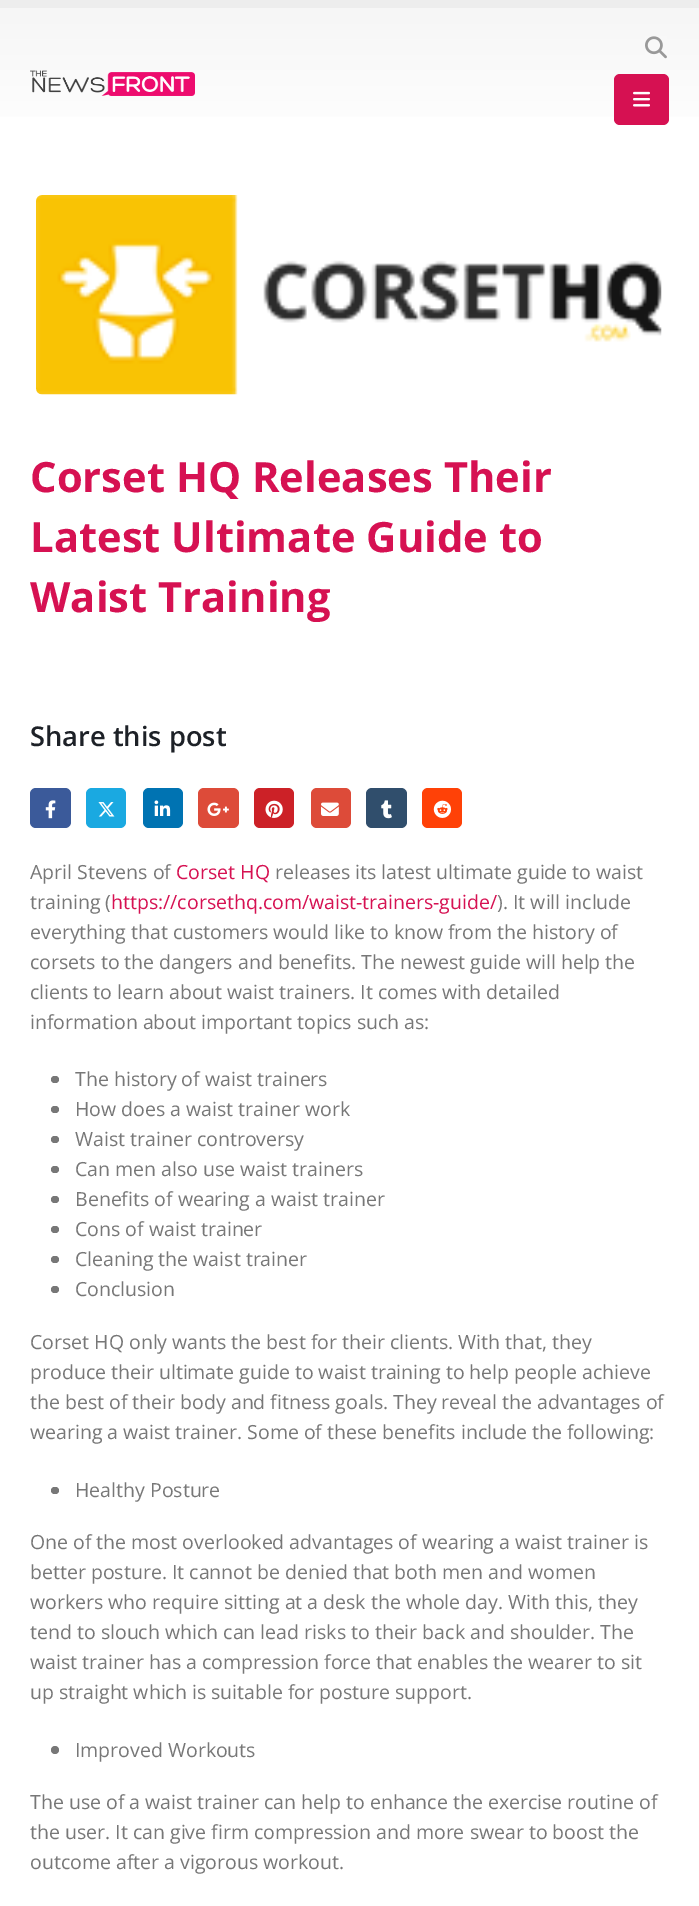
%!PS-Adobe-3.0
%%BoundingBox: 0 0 699 1906
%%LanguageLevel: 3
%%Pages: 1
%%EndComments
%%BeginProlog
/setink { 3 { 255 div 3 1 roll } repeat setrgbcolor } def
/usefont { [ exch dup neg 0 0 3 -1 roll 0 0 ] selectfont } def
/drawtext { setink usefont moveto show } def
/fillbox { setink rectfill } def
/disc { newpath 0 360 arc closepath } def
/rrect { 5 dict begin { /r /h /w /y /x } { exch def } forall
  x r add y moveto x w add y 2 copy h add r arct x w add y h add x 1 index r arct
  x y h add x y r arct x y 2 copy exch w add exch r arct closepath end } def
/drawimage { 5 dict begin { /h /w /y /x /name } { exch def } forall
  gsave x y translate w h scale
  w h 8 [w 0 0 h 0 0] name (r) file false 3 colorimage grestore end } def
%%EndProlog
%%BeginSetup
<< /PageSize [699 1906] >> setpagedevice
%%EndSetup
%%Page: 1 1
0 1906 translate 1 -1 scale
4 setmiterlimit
0 0 699 1906 255 255 255 fillbox
0 0 699 8 237 237 237 fillbox
gsave 0 8 moveto 699 8 lineto 699 117 lineto 0 117 lineto closepath clip newpath
<< /ShadingType 2 /ColorSpace /DeviceRGB /Coords [350 7.5 350 159] /Extend [true true] /Function << /FunctionType 2 /Domain [0 1] /C0 [0.965 0.965 0.965] /C1 [1 1 1] /N 1 >> >> shfill grestore
(assets/img1.rgb) 30 70 165 26 drawimage
(assets/img2.rgb) 645 36 22 23 drawimage
214 17 82 setink
614 74 55 51 6 rrect fill
(assets/img3.rgb) 633 91 17 16 drawimage
(assets/img4.rgb) 36 195 626 200 drawimage
(Corset HQ Releases Their) 30 492 /OpenSans-Bold 41.75 214 17 82 drawtext
(Latest Ultimate Guide to) 30 552 /OpenSans-Bold 41.75 214 17 82 drawtext
(Waist Training) 30 612 /OpenSans-Bold 41.75 214 17 82 drawtext
(Share this post) 30 746 /OpenSans-SemiBold 27.25 29 33 39 drawtext
59 90 154 setink
30 788 41 40 6 rrect fill
(assets/img5.rgb) 45 800 11 19 drawimage
26 169 225 setink
86 788 40 40 6 rrect fill
(assets/img6.rgb) 98 802 17 15 drawimage
0 115 178 setink
143 788 40 40 6 rrect fill
(assets/img7.rgb) 154 800 17 16 drawimage
221 75 57 setink
198 788 41 40 6 rrect fill
(assets/img8.rgb) 207 802 22 14 drawimage
204 33 39 setink
254 788 40 40 6 rrect fill
(assets/img9.rgb) 265 800 18 18 drawimage
221 75 57 setink
311 788 40 40 6 rrect fill
(assets/img10.rgb) 321 802 18 14 drawimage
48 78 108 setink
366 788 41 40 6 rrect fill
(assets/img11.rgb) 381 800 11 19 drawimage
255 65 7 setink
422 788 40 40 6 rrect fill
(assets/img12.rgb) 433 800 18 18 drawimage
(April Stevens of) 30 879 /OpenSans-Regular 19.5 119 119 119 drawtext
(Corset HQ) 176 879 /OpenSans-Regular 19.5 214 17 82 drawtext
(releases its latest ultimate guide to waist) 275 879 /OpenSans-Regular 19.5 119 119 119 drawtext
(training \() 30 909 /OpenSans-Regular 19.5 119 119 119 drawtext
(https://corsethq.com/waist-trainers-guide/) 111 909 /OpenSans-Regular 19.5 214 17 82 drawtext
(\). It will include) 497 909 /OpenSans-Regular 19.5 119 119 119 drawtext
(everything that customers would like to know from the history of) 30 939 /OpenSans-Regular 19.5 119 119 119 drawtext
(corsets to the dangers and benefits. The newest guide will help the) 30 969 /OpenSans-Regular 19.5 119 119 119 drawtext
(clients to learn about waist trainers. It comes with detailed) 30 999 /OpenSans-Regular 19.5 119 119 119 drawtext
(information about important topics such as:) 30 1029 /OpenSans-Regular 19.5 119 119 119 drawtext
51 1076 8 7 3.5 rrect fill
(The history of waist trainers) 75 1086 /OpenSans-Regular 19.5 119 119 119 drawtext
51 1106 8 7 3.5 rrect fill
(How does a waist trainer work) 75 1116 /OpenSans-Regular 19.5 119 119 119 drawtext
51 1136 8 7 3.5 rrect fill
(Waist trainer controversy) 75 1146 /OpenSans-Regular 19.5 119 119 119 drawtext
51 1166 8 7 3.5 rrect fill
(Can men also use waist trainers) 75 1176 /OpenSans-Regular 19.5 119 119 119 drawtext
51 1196 8 7 3.5 rrect fill
(Benefits of wearing a waist trainer) 75 1206 /OpenSans-Regular 19.5 119 119 119 drawtext
51 1226 8 7 3.5 rrect fill
(Cons of waist trainer) 75 1236 /OpenSans-Regular 19.5 119 119 119 drawtext
51 1256 8 7 3.5 rrect fill
(Cleaning the waist trainer) 75 1266 /OpenSans-Regular 19.5 119 119 119 drawtext
51 1286 8 7 3.5 rrect fill
(Conclusion) 75 1296 /OpenSans-Regular 19.5 119 119 119 drawtext
(Corset HQ only wants the best for their clients. With that, they) 30 1349 /OpenSans-Regular 19.5 119 119 119 drawtext
(produce their ultimate guide to waist training to help people achieve) 30 1379 /OpenSans-Regular 19.5 119 119 119 drawtext
(the best of their body and fitness goals. They reveal the advantages of) 30 1409 /OpenSans-Regular 19.5 119 119 119 drawtext
(wearing a waist trainer. Some of these benefits include the following:) 30 1439 /OpenSans-Regular 19.5 119 119 119 drawtext
51 1487 8 7 3.5 rrect fill
(Healthy Posture) 75 1497 /OpenSans-Regular 19.5 119 119 119 drawtext
(One of the most overlooked advantages of wearing a waist trainer is) 30 1549 /OpenSans-Regular 19.5 119 119 119 drawtext
(better posture. It cannot be denied that both men and women) 30 1579 /OpenSans-Regular 19.5 119 119 119 drawtext
(workers who require sitting at a desk the whole day. With this, they) 30 1609 /OpenSans-Regular 19.5 119 119 119 drawtext
(tend to slouch which can lead risks to their back and shoulder. The) 30 1639 /OpenSans-Regular 19.5 119 119 119 drawtext
(waist trainer has a compression force that enables the wearer to sit) 30 1669 /OpenSans-Regular 19.5 119 119 119 drawtext
(up straight which is suitable for posture support.) 30 1699 /OpenSans-Regular 19.5 119 119 119 drawtext
55 1750 4 disc fill
(Improved Workouts) 75 1757 /OpenSans-Regular 19.5 119 119 119 drawtext
(The use of a waist trainer can help to enhance the exercise routine of) 30 1809 /OpenSans-Regular 19.5 119 119 119 drawtext
(the user. It can give firm compression and more swear to boost the) 30 1839 /OpenSans-Regular 19.5 119 119 119 drawtext
(outcome after a vigorous workout.) 30 1869 /OpenSans-Regular 19.5 119 119 119 drawtext
showpage
%%EOF
